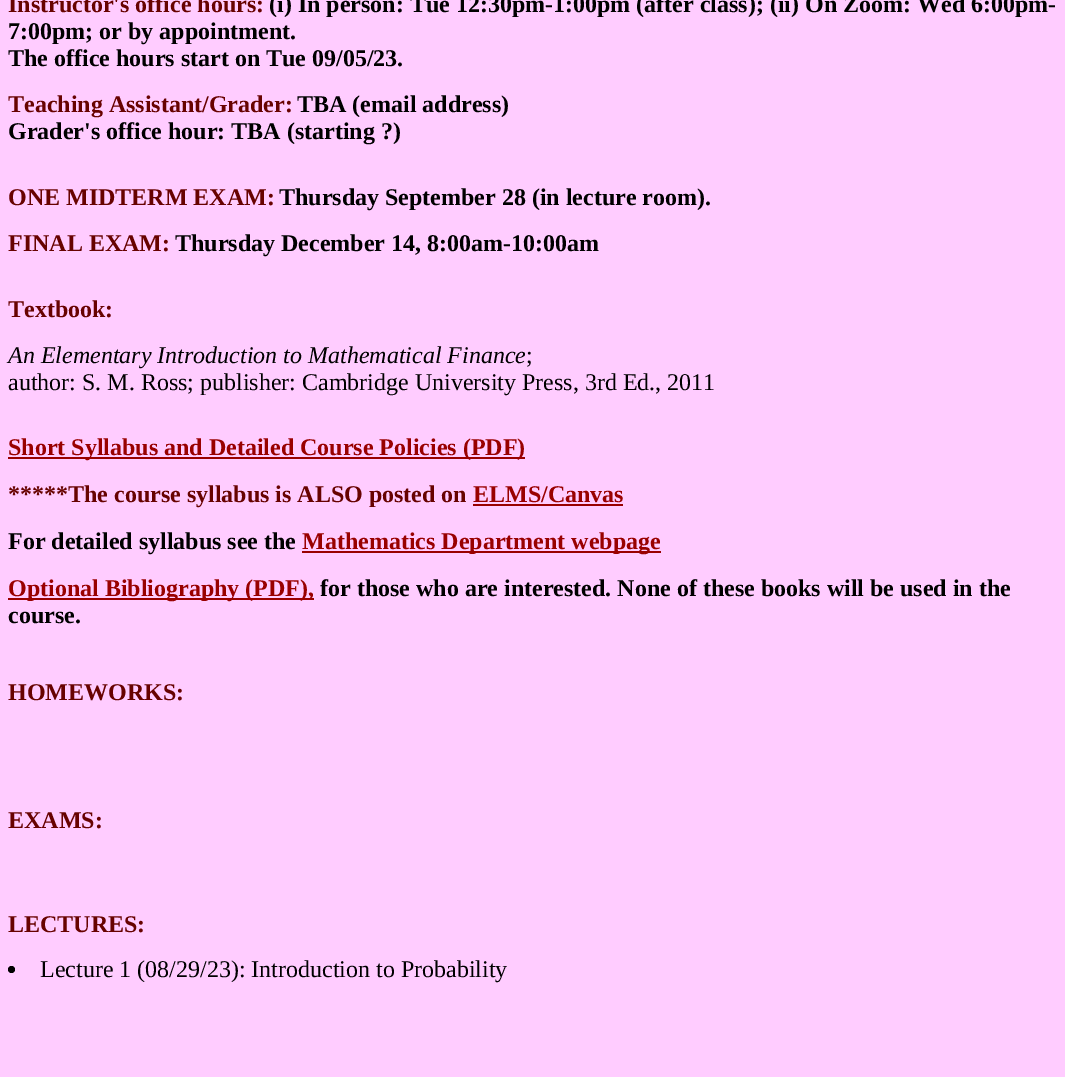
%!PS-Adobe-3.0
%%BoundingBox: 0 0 1065 1077
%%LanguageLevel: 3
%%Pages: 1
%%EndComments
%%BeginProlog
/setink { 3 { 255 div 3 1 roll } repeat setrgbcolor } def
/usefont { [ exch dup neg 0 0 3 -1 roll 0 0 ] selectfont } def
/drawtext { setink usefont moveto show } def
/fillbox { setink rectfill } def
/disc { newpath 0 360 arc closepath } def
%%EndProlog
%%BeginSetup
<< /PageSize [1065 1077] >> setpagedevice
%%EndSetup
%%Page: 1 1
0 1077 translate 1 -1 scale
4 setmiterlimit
0 0 1065 1077 255 204 255 fillbox
(Instructor's office hours:) 8 12 /LiberationSerif-Bold 24 103 2 0 drawtext
(\(i\) In person: Tue 12:30pm-1:00pm \(after class\); \(ii\) On Zoom: Wed 6:00pm-) 269 12 /LiberationSerif-Bold 24 0 0 0 drawtext
(7:00pm; or by appointment.) 8 39 /LiberationSerif-Bold 24 0 0 0 drawtext
(The office hours start on Tue 09/05/23.) 8 66 /LiberationSerif-Bold 24 0 0 0 drawtext
(Teaching Assistant/Grader:) 8 112 /LiberationSerif-Bold 24 103 2 0 drawtext
(TBA \(email address\)) 297 112 /LiberationSerif-Bold 24 0 0 0 drawtext
(Grader's office hour: TBA \(starting ?\)) 8 139 /LiberationSerif-Bold 24 0 0 0 drawtext
(ONE MIDTERM EXAM:) 8 205 /LiberationSerif-Bold 24 103 2 0 drawtext
(Thursday September 28 \(in lecture room\).) 279 205 /LiberationSerif-Bold 24 0 0 0 drawtext
(FINAL EXAM:) 8 251 /LiberationSerif-Bold 24 103 2 0 drawtext
(Thursday December 14, 8:00am-10:00am) 175 251 /LiberationSerif-Bold 24 0 0 0 drawtext
(Textbook:) 8 317 /LiberationSerif-Bold 24 103 2 0 drawtext
(An Elementary Introduction to Mathematical Finance) 8 363 /LiberationSerif-Italic 24 0 0 0 drawtext
(;) 526 363 /LiberationSerif-Regular 24 0 0 0 drawtext
(author: S. M. Ross; publisher: Cambridge University Press, 3rd Ed., 2011) 8 390 /LiberationSerif-Regular 24 0 0 0 drawtext
8 457 517 2 153 0 0 fillbox
(Short Syllabus and Detailed Course Policies \(PDF\)) 8 455 /LiberationSerif-Bold 24 153 0 0 drawtext
(*****The course syllabus is ALSO posted on) 8 502 /LiberationSerif-Bold 24 103 2 0 drawtext
(ELMS/Canvas) 473 502 /LiberationSerif-Bold 24 153 0 0 drawtext
473 504 150 2 153 0 0 fillbox
(For detailed syllabus see the) 8 549 /LiberationSerif-Bold 24 0 0 0 drawtext
302 551 359 2 153 0 0 fillbox
(Mathematics Department webpage) 302 549 /LiberationSerif-Bold 24 153 0 0 drawtext
8 598 306 2 153 0 0 fillbox
(Optional Bibliography \(PDF\),) 8 596 /LiberationSerif-Bold 24 153 0 0 drawtext
(for those who are interested. None of these books will be used in the) 320 596 /LiberationSerif-Bold 24 0 0 0 drawtext
(course.) 8 623 /LiberationSerif-Bold 24 0 0 0 drawtext
(HOMEWORKS:) 8 700 /LiberationSerif-Bold 24 103 2 0 drawtext
(EXAMS:) 8 828 /LiberationSerif-Bold 24 103 2 0 drawtext
(LECTURES:) 8 932 /LiberationSerif-Bold 24 103 2 0 drawtext
0 0 0 setink
11.5 969.5 3.5 disc fill
(Lecture 1 \(08/29/23\): Introduction to Probability) 40 977 /LiberationSerif-Regular 24 0 0 0 drawtext
showpage
%%EOF
